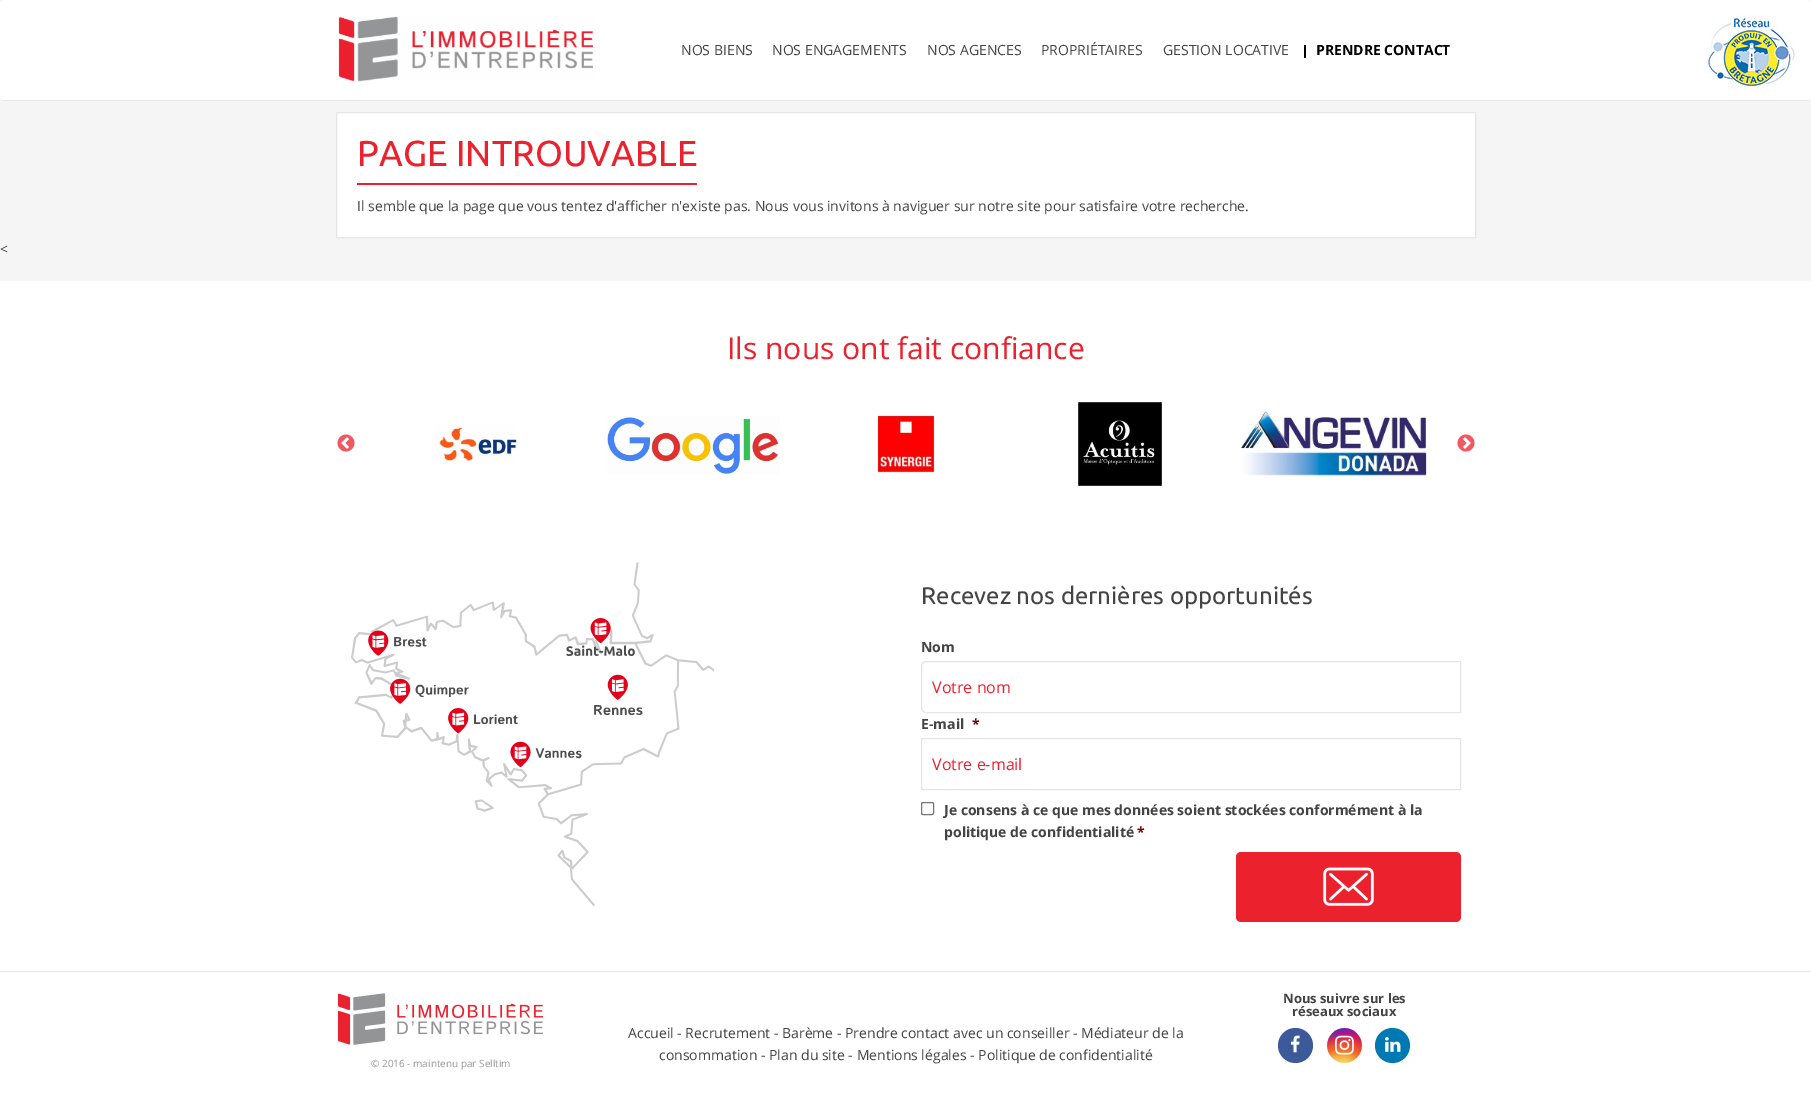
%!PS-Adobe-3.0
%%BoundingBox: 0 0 1811 1101
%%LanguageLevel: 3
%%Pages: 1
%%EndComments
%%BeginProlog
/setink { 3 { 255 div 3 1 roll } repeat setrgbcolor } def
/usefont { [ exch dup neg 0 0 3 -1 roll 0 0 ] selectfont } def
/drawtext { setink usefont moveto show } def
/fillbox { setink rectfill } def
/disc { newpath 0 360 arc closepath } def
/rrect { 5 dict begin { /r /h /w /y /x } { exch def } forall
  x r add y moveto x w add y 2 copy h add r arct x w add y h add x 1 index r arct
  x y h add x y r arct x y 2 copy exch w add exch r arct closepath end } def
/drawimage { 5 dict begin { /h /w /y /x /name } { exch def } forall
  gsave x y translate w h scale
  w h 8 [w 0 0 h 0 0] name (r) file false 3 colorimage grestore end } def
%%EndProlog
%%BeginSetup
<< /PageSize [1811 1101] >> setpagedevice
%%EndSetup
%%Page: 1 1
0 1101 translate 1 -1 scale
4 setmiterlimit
0 0 1811 1101 245 245 245 fillbox
255 255 255 setink
4 0 moveto 1807 0 lineto 1809 0 1811 2 1811 4 curveto 1811 97 lineto 1811 99 1809 100 1807 100 curveto 4 100 lineto 2 100 0 99 0 97 curveto 0 4 lineto 0 2 2 0 4 0 curveto closepath fill
2 100 1807 1 231 231 231 fillbox
(assets/img1.rgb) 338 16 255 66 drawimage
(NOS BIENS) 681 55 /OpenSans-Regular 14 68 68 68 drawtext
(NOS ENGAGEMENTS) 772 55 /OpenSans-Regular 14 68 68 68 drawtext
(NOS AGENCES) 927 55 /OpenSans-Regular 14 68 68 68 drawtext
(PROPRIÉTAIRES) 1041 55 /OpenSans-Regular 14 68 68 68 drawtext
(GESTION LOCATIVE) 1163 55 /OpenSans-Regular 14 68 68 68 drawtext
1304 45 2 13 0 0 0 fillbox
(PRENDRE CONTACT) 1316 55 /OpenSans-Bold 14 0 0 0 drawtext
(assets/img2.rgb) 1706 15 90 72 drawimage
255 255 255 setink
336.5 112.5 moveto 1475.5 112.5 lineto 1475.5 237.5 lineto 336.5 237.5 lineto closepath gsave fill grestore
229 229 229 setink
stroke
357 183 340 2 235 33 46 fillbox
(PAGE INTROUVABLE) 357 166 /Ubuntu-Regular 36 235 33 46 drawtext
(Il semble que la page que vous tentez d'afficher n'existe pas. Nous vous invitons à naviguer sur notre site pour satisfaire votre recherche.) 357 211 /OpenSans-Regular 14 68 68 68 drawtext
(<) 0 254 /OpenSans-Regular 14 68 68 68 drawtext
0 281 1811 690 255 255 255 fillbox
(Ils nous ont fait confiance) 727 359 /OpenSans-Regular 30 235 33 46 drawtext
(assets/img3.rgb) 337 434 18 18 drawimage
(assets/img4.rgb) 436 423 81 39 drawimage
(assets/img5.rgb) 607 416 173 59 drawimage
(assets/img6.rgb) 877 413 58 62 drawimage
(assets/img7.rgb) 1078 402 84 84 drawimage
(assets/img8.rgb) 1241 411 189 65 drawimage
(assets/img9.rgb) 1457 434 18 18 drawimage
(assets/img10.rgb) 351 562 364 344 drawimage
(Recevez nos dernières opportunités) 921 604 /Ubuntu-Regular 24 68 68 68 drawtext
(Nom) 921 652 /OpenSans-Bold 14 68 68 68 drawtext
229 229 229 setink
926 661.5 moveto 1460.5 661.5 lineto 1460.5 712.5 lineto 926 712.5 lineto 923.5 712.5 921.5 710.5 921.5 708 curveto 921.5 666 lineto 921.5 663.5 923.5 661.5 926 661.5 curveto closepath stroke
(Votre nom) 932 693 /OpenSans-Regular 16 235 33 46 drawtext
(E-mail) 921 729 /OpenSans-Bold 14 68 68 68 drawtext
(*) 972 729 /OpenSans-Bold 14 121 0 0 drawtext
229 229 229 setink
921.5 738.5 539 51 rectstroke
(Votre e-mail) 932 770 /OpenSans-Regular 16 235 33 46 drawtext
118 118 118 setink
921.5 802.5 12 12 1.5 rrect stroke
(Je consens à ce que mes données soient stockées conformément à la) 944 815 /OpenSans-Bold 14 68 68 68 drawtext
(politique de confidentialité) 944 837 /OpenSans-Bold 14 68 68 68 drawtext
(*) 1137 837 /OpenSans-Bold 14 121 0 0 drawtext
235 33 46 setink
1236 852 225 70 5 rrect fill
(assets/img11.rgb) 1323 867 51 39 drawimage
0 972 1811 129 255 255 255 fillbox
0 971 1811 1 229 229 229 fillbox
(Nous suivre sur les) 1283 1003 /OpenSans-Bold 13 68 68 68 drawtext
(réseaux sociaux) 1292 1016 /OpenSans-Bold 13 68 68 68 drawtext
60 90 154 setink
1295.5 1045.5 17.5 disc fill
(assets/img12.rgb) 1290 1035 10 18 drawimage
(assets/img13.rgb) 1327 1028 35 35 drawimage
(assets/img14.rgb) 1335 1035 19 20 drawimage
0 120 178 setink
1392.5 1045.5 17.5 disc fill
(assets/img15.rgb) 1385 1037 16 15 drawimage
(assets/img16.rgb) 337 993 207 52 drawimage
(© 2016 - maintenu par Selltim) 371 1067 /OpenSans-Regular 10 153 153 153 drawtext
(Accueil - Recrutement - Barème - Prendre contact avec un conseiller - Médiateur de la) 628 1038 /OpenSans-Regular 14 68 68 68 drawtext
(consommation - Plan du site - Mentions légales - Politique de confidentialité) 659 1060 /OpenSans-Regular 14 68 68 68 drawtext
showpage
%%EOF
